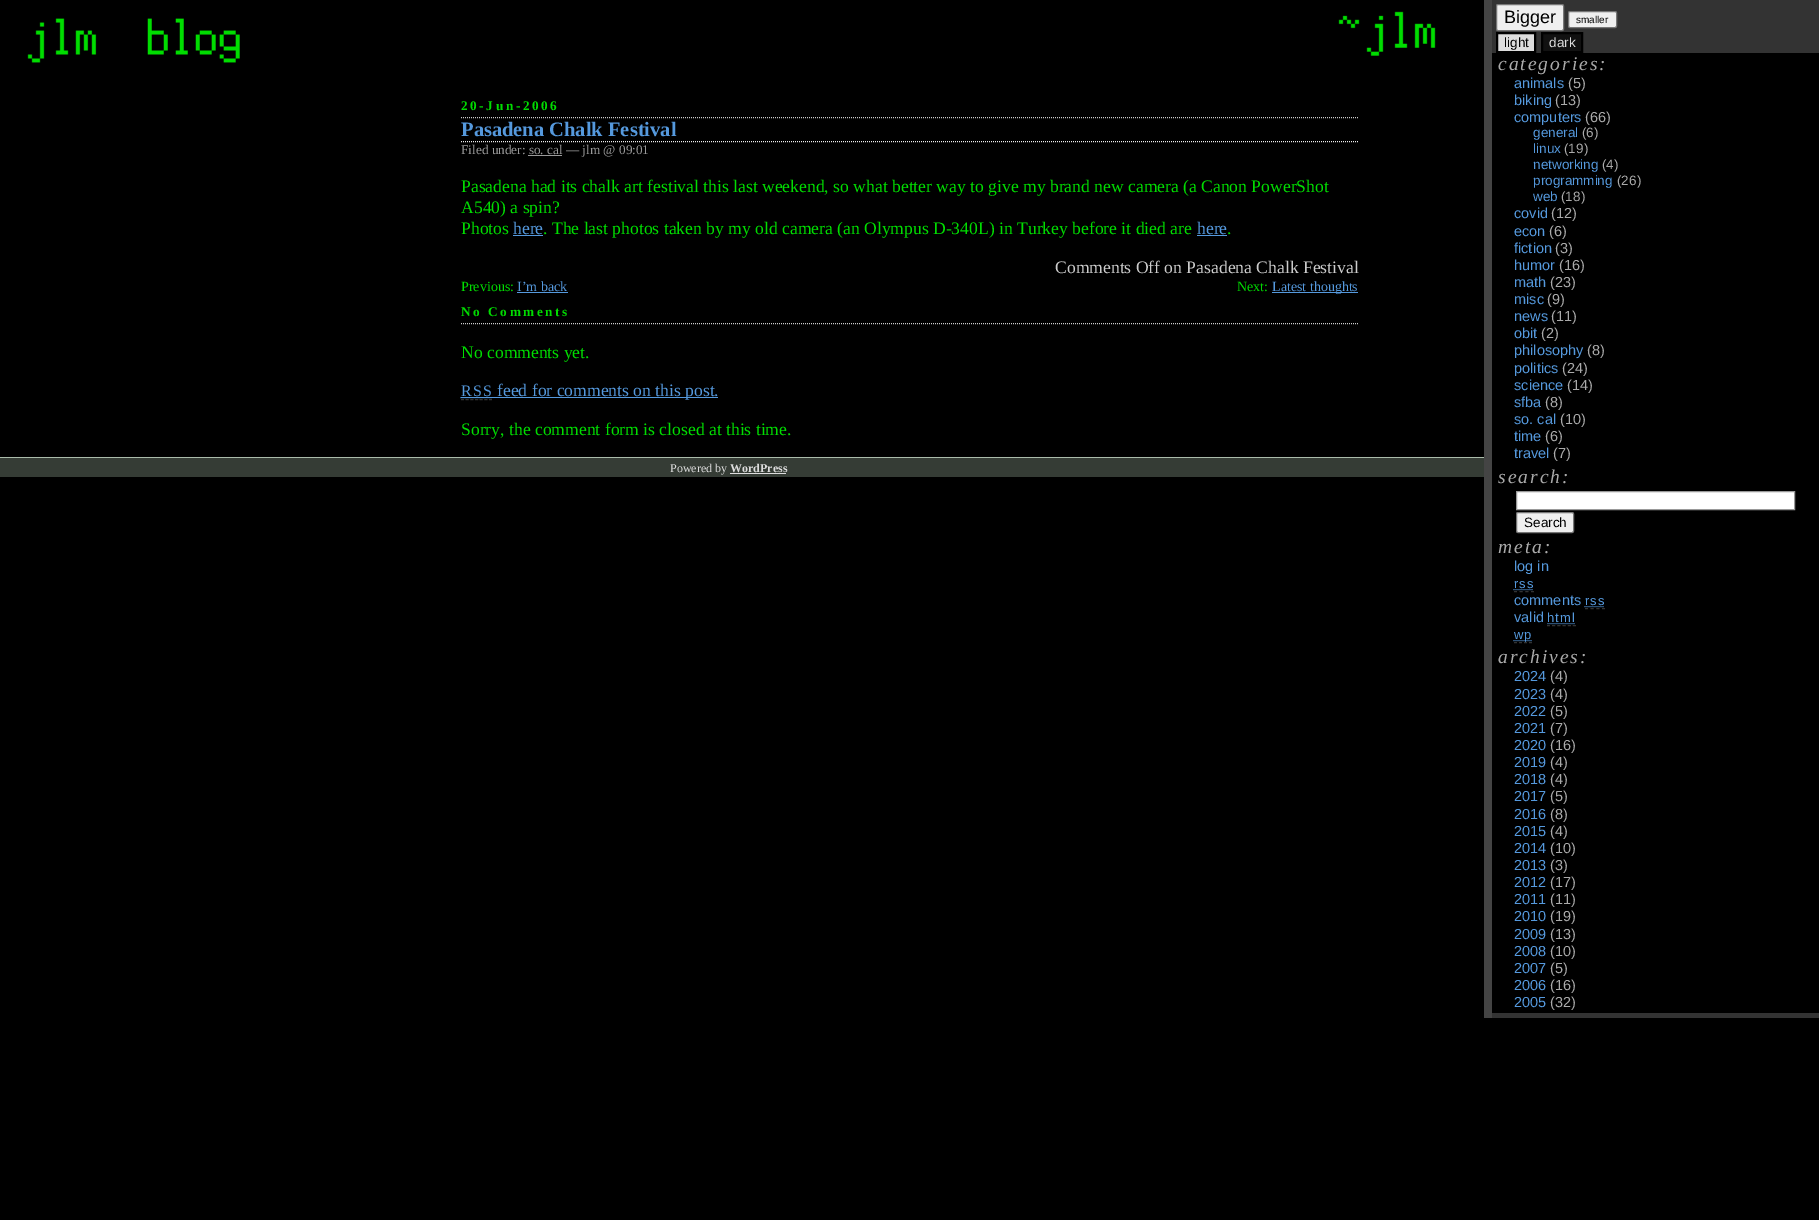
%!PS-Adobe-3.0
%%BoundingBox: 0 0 1819 1220
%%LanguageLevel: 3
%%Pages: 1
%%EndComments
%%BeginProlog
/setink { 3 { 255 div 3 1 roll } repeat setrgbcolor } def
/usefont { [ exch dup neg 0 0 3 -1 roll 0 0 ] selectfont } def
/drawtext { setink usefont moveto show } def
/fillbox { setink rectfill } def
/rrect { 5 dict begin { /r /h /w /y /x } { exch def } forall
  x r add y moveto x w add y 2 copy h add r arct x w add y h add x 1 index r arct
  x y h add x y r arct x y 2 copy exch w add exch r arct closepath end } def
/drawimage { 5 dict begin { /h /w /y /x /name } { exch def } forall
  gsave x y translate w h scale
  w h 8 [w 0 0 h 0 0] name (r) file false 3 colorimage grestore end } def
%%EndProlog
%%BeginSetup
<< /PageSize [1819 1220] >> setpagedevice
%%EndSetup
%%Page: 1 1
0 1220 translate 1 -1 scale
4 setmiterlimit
0 0 1819 1220 0 0 0 fillbox
(assets/img1.rgb) 27 18 213 45 drawimage
(assets/img2.rgb) 1338 11 98 45 drawimage
1492 0 327 1018 51 51 51 fillbox
1484 0 8 1018 68 68 68 fillbox
239 239 239 setink
1496.5 4.5 67 26 1.5 rrect gsave fill grestore
118 118 118 setink
stroke
(Bigger) 1504 23 /LiberationSans-Regular 18 0 0 0 drawtext
239 239 239 setink
1568.5 11.5 48 16 1.5 rrect gsave fill grestore
118 118 118 setink
stroke
(smaller) 1576 23 /LiberationSans-Regular 10 0 0 0 drawtext
221 221 221 setink
1497 33 moveto 1535 33 lineto 1535 52 lineto 1497 52 lineto closepath gsave fill grestore
0 0 0 setink
2 setlinewidth
stroke
(light) 1504 47 /LiberationSans-Regular 13.5 0 0 0 drawtext
17 17 17 setink
1542 33 moveto 1582 33 lineto 1582 52 lineto 1542 52 lineto closepath gsave fill grestore
0 0 0 setink
stroke
(dark) 1549 47 /LiberationSans-Regular 13.5 221 221 221 drawtext
1492 53 327 960 0 0 0 fillbox
/LiberationSerif-Italic 19.5 usefont
170 170 170 setink
1498 70 moveto 2 0 (categories:) ashow
(animals) 1514 88 /LiberationSans-Regular 14.5 85 153 221 drawtext
(\(5\)) 1568 88 /LiberationSans-Regular 14.5 170 170 170 drawtext
(biking) 1514 105 /LiberationSans-Regular 14.5 85 153 221 drawtext
(\(13\)) 1555 105 /LiberationSans-Regular 14.5 170 170 170 drawtext
(computers) 1514 122 /LiberationSans-Regular 14.5 85 153 221 drawtext
(\(66\)) 1585 122 /LiberationSans-Regular 14.5 170 170 170 drawtext
(general) 1533 137 /LiberationSans-Regular 13.5 85 153 221 drawtext
(\(6\)) 1582 137 /LiberationSans-Regular 13.5 170 170 170 drawtext
(linux) 1533 153 /LiberationSans-Regular 13.5 85 153 221 drawtext
(\(19\)) 1564 153 /LiberationSans-Regular 13.5 170 170 170 drawtext
(networking) 1533 169 /LiberationSans-Regular 13.5 85 153 221 drawtext
(\(4\)) 1602 169 /LiberationSans-Regular 13.5 170 170 170 drawtext
(programming) 1533 185 /LiberationSans-Regular 13.5 85 153 221 drawtext
(\(26\)) 1617 185 /LiberationSans-Regular 13.5 170 170 170 drawtext
(web) 1533 201 /LiberationSans-Regular 13.5 85 153 221 drawtext
(\(18\)) 1561 201 /LiberationSans-Regular 13.5 170 170 170 drawtext
(covid) 1514 218 /LiberationSans-Regular 14.5 85 153 221 drawtext
(\(12\)) 1551 218 /LiberationSans-Regular 14.5 170 170 170 drawtext
(econ) 1514 236 /LiberationSans-Regular 14.5 85 153 221 drawtext
(\(6\)) 1549 236 /LiberationSans-Regular 14.5 170 170 170 drawtext
(fiction) 1514 253 /LiberationSans-Regular 14.5 85 153 221 drawtext
(\(3\)) 1555 253 /LiberationSans-Regular 14.5 170 170 170 drawtext
(humor) 1514 270 /LiberationSans-Regular 14.5 85 153 221 drawtext
(\(16\)) 1559 270 /LiberationSans-Regular 14.5 170 170 170 drawtext
(math) 1514 287 /LiberationSans-Regular 14.5 85 153 221 drawtext
(\(23\)) 1550 287 /LiberationSans-Regular 14.5 170 170 170 drawtext
(misc) 1514 304 /LiberationSans-Regular 14.5 85 153 221 drawtext
(\(9\)) 1547 304 /LiberationSans-Regular 14.5 170 170 170 drawtext
(news) 1514 321 /LiberationSans-Regular 14.5 85 153 221 drawtext
(\(11\)) 1551 321 /LiberationSans-Regular 14.5 170 170 170 drawtext
(obit) 1514 338 /LiberationSans-Regular 14.5 85 153 221 drawtext
(\(2\)) 1541 338 /LiberationSans-Regular 14.5 170 170 170 drawtext
(philosophy) 1514 355 /LiberationSans-Regular 14.5 85 153 221 drawtext
(\(8\)) 1587 355 /LiberationSans-Regular 14.5 170 170 170 drawtext
(politics) 1514 373 /LiberationSans-Regular 14.5 85 153 221 drawtext
(\(24\)) 1562 373 /LiberationSans-Regular 14.5 170 170 170 drawtext
(science) 1514 390 /LiberationSans-Regular 14.5 85 153 221 drawtext
(\(14\)) 1567 390 /LiberationSans-Regular 14.5 170 170 170 drawtext
(sfba) 1514 407 /LiberationSans-Regular 14.5 85 153 221 drawtext
(\(8\)) 1545 407 /LiberationSans-Regular 14.5 170 170 170 drawtext
(so. cal) 1514 424 /LiberationSans-Regular 14.5 85 153 221 drawtext
(\(10\)) 1560 424 /LiberationSans-Regular 14.5 170 170 170 drawtext
(time) 1514 441 /LiberationSans-Regular 14.5 85 153 221 drawtext
(\(6\)) 1545 441 /LiberationSans-Regular 14.5 170 170 170 drawtext
(travel) 1514 458 /LiberationSans-Regular 14.5 85 153 221 drawtext
(\(7\)) 1553 458 /LiberationSans-Regular 14.5 170 170 170 drawtext
/LiberationSerif-Italic 19.5 usefont
1498 483 moveto 2 0 (search:) ashow
255 255 255 setink
1516.5 491.5 moveto 1794.5 491.5 lineto 1794.5 509.5 lineto 1516.5 509.5 lineto closepath gsave fill grestore
153 153 153 setink
1 setlinewidth
stroke
239 239 239 setink
1516.5 512.5 57 20 1.5 rrect gsave fill grestore
118 118 118 setink
stroke
(Search) 1524 527 /LiberationSans-Regular 13.5 0 0 0 drawtext
/LiberationSerif-Italic 19.5 usefont
170 170 170 setink
1498 553 moveto 2 0 (meta:) ashow
(log in) 1514 571 /LiberationSans-Regular 14.5 85 153 221 drawtext
/LiberationSans-Regular 13 usefont
1514 588 moveto 1 0 (rss) ashow
51 51 51 setink
[3 2.67] 0 setdash
1514 591.5 moveto 1534 591.5 lineto stroke
85 153 221 setink
[1 1] 0 setdash
1513.5 589.5 moveto 1533.5 589.5 lineto stroke
(comments) 1514 605 /LiberationSans-Regular 14.5 85 153 221 drawtext
/LiberationSans-Regular 13 usefont
1585 605 moveto 1 0 (rss) ashow
51 51 51 setink
[3 2.67] 0 setdash
1585 608.5 moveto 1605 608.5 lineto stroke
85 153 221 setink
[1 1] 0 setdash
1584.5 606.5 moveto 1604.5 606.5 lineto stroke
(valid) 1514 622 /LiberationSans-Regular 14.5 85 153 221 drawtext
/LiberationSans-Regular 13 usefont
1547 622 moveto 1 0 (html) ashow
51 51 51 setink
[3 2.2] 0 setdash
1547 625.5 moveto 1576 625.5 lineto stroke
85 153 221 setink
[1 1] 0 setdash
1547.5 623.5 moveto 1575.5 623.5 lineto stroke
1513.5 640.5 moveto 1532 640.5 lineto stroke
1514 639 moveto 1 0 (wp) ashow
51 51 51 setink
[3 2] 0 setdash
1514 642.5 moveto 1532 642.5 lineto stroke
/LiberationSerif-Italic 19.5 usefont
170 170 170 setink
1498 663 moveto 2 0 (archives:) ashow
(2024) 1514 681 /LiberationSans-Regular 14.5 85 153 221 drawtext
(\(4\)) 1550 681 /LiberationSans-Regular 14.5 170 170 170 drawtext
(2023) 1514 699 /LiberationSans-Regular 14.5 85 153 221 drawtext
(\(4\)) 1550 699 /LiberationSans-Regular 14.5 170 170 170 drawtext
(2022) 1514 716 /LiberationSans-Regular 14.5 85 153 221 drawtext
(\(5\)) 1550 716 /LiberationSans-Regular 14.5 170 170 170 drawtext
(2021) 1514 733 /LiberationSans-Regular 14.5 85 153 221 drawtext
(\(7\)) 1550 733 /LiberationSans-Regular 14.5 170 170 170 drawtext
(2020) 1514 750 /LiberationSans-Regular 14.5 85 153 221 drawtext
(\(16\)) 1550 750 /LiberationSans-Regular 14.5 170 170 170 drawtext
(2019) 1514 767 /LiberationSans-Regular 14.5 85 153 221 drawtext
(\(4\)) 1550 767 /LiberationSans-Regular 14.5 170 170 170 drawtext
(2018) 1514 784 /LiberationSans-Regular 14.5 85 153 221 drawtext
(\(4\)) 1550 784 /LiberationSans-Regular 14.5 170 170 170 drawtext
(2017) 1514 801 /LiberationSans-Regular 14.5 85 153 221 drawtext
(\(5\)) 1550 801 /LiberationSans-Regular 14.5 170 170 170 drawtext
(2016) 1514 819 /LiberationSans-Regular 14.5 85 153 221 drawtext
(\(8\)) 1550 819 /LiberationSans-Regular 14.5 170 170 170 drawtext
(2015) 1514 836 /LiberationSans-Regular 14.5 85 153 221 drawtext
(\(4\)) 1550 836 /LiberationSans-Regular 14.5 170 170 170 drawtext
(2014) 1514 853 /LiberationSans-Regular 14.5 85 153 221 drawtext
(\(10\)) 1550 853 /LiberationSans-Regular 14.5 170 170 170 drawtext
(2013) 1514 870 /LiberationSans-Regular 14.5 85 153 221 drawtext
(\(3\)) 1550 870 /LiberationSans-Regular 14.5 170 170 170 drawtext
(2012) 1514 887 /LiberationSans-Regular 14.5 85 153 221 drawtext
(\(17\)) 1550 887 /LiberationSans-Regular 14.5 170 170 170 drawtext
(2011) 1514 904 /LiberationSans-Regular 14.5 85 153 221 drawtext
(\(11\)) 1550 904 /LiberationSans-Regular 14.5 170 170 170 drawtext
(2010) 1514 921 /LiberationSans-Regular 14.5 85 153 221 drawtext
(\(19\)) 1550 921 /LiberationSans-Regular 14.5 170 170 170 drawtext
(2009) 1514 939 /LiberationSans-Regular 14.5 85 153 221 drawtext
(\(13\)) 1550 939 /LiberationSans-Regular 14.5 170 170 170 drawtext
(2008) 1514 956 /LiberationSans-Regular 14.5 85 153 221 drawtext
(\(10\)) 1550 956 /LiberationSans-Regular 14.5 170 170 170 drawtext
(2007) 1514 973 /LiberationSans-Regular 14.5 85 153 221 drawtext
(\(5\)) 1550 973 /LiberationSans-Regular 14.5 170 170 170 drawtext
(2006) 1514 990 /LiberationSans-Regular 14.5 85 153 221 drawtext
(\(16\)) 1550 990 /LiberationSans-Regular 14.5 170 170 170 drawtext
(2005) 1514 1007 /LiberationSans-Regular 14.5 85 153 221 drawtext
(\(32\)) 1550 1007 /LiberationSans-Regular 14.5 170 170 170 drawtext
204 204 204 setink
[1 1] 0 setdash
461 117.5 moveto 1358 117.5 lineto stroke
/LiberationSerif-Bold 13.25 usefont
0 221 0 setink
461 110 moveto 2.6 0 (20-Jun-2006) ashow
238 238 238 setink
461 141.5 moveto 1358 141.5 lineto stroke
(Pasadena Chalk Festival) 461 136 /LiberationSerif-Bold 20.5 85 153 221 drawtext
(Filed under: so. cal — jlm @ 09:01) 461 154 /LiberationSerif-Regular 13.25 153 153 153 drawtext
528 155 34 1 153 153 153 fillbox
(Pasadena had its chalk art festival this last weekend, so what better way to give my brand new camera \(a Canon PowerShot) 461 192 /LiberationSerif-Regular 17.6 0 221 0 drawtext
(A540\) a spin?) 461 213 /LiberationSerif-Regular 17.6 0 221 0 drawtext
(Photos) 461 234 /LiberationSerif-Regular 17.6 0 221 0 drawtext
(here) 513 234 /LiberationSerif-Regular 17.6 85 153 221 drawtext
513 235 30 1 85 153 221 fillbox
(. The last photos taken by my old camera \(an Olympus D-340L\) in Turkey before it died are) 543 234 /LiberationSerif-Regular 17.6 0 221 0 drawtext
(here) 1197 234 /LiberationSerif-Regular 17.6 85 153 221 drawtext
1197 235 30 1 85 153 221 fillbox
(.) 1227 234 /LiberationSerif-Regular 17.6 0 221 0 drawtext
(Comments Off on Pasadena Chalk Festival) 1055 273 /LiberationSerif-Regular 17.6 204 204 204 drawtext
(Previous:) 461 291 /LiberationSerif-Regular 14 0 221 0 drawtext
(I’m back) 517 291 /LiberationSerif-Regular 14 85 153 221 drawtext
517 292 51 1 85 153 221 fillbox
(Next:) 1237 291 /LiberationSerif-Regular 14 0 221 0 drawtext
1272 292 86 1 85 153 221 fillbox
(Latest thoughts) 1272 291 /LiberationSerif-Regular 14 85 153 221 drawtext
204 204 204 setink
461 323.5 moveto 1358 323.5 lineto stroke
/LiberationSerif-Bold 13.25 usefont
0 221 0 setink
461 316 moveto 2.6 0 (No Comments) ashow
(No comments yet.) 461 358 /LiberationSerif-Regular 17.6 0 221 0 drawtext
/LiberationSerif-Regular 16 usefont
85 153 221 setink
461 396 moveto 1 0 (RSS) ashow
51 51 51 setink
[3 1.67] 0 setdash
461 399.5 moveto 492 399.5 lineto stroke
85 153 221 setink
[1 1] 0 setdash
460.5 397.5 moveto 492 397.5 lineto stroke
461 397 257 1 85 153 221 fillbox
(feed for comments on this post.) 497 396 /LiberationSerif-Regular 17.6 85 153 221 drawtext
(Sorry, the comment form is closed at this time.) 461 435 /LiberationSerif-Regular 17.6 0 221 0 drawtext
0 458 1484 19 53 60 53 fillbox
0 457 1484 1 170 187 170 fillbox
(Powered by) 670 472 /LiberationSerif-Regular 12 221 221 221 drawtext
(WordPress) 730 472 /LiberationSerif-Bold 12 221 221 221 drawtext
730 473 56 1 221 221 221 fillbox
showpage
%%EOF
